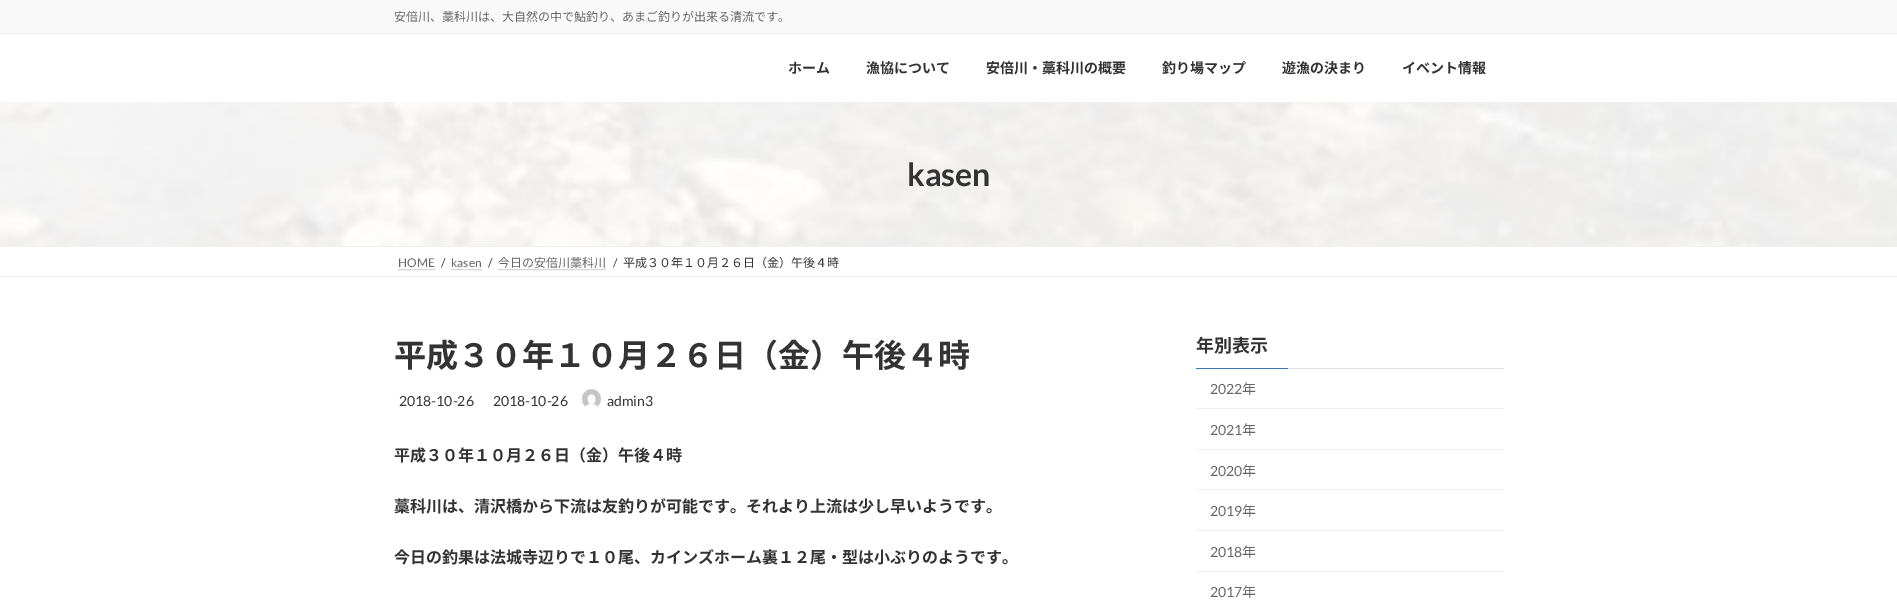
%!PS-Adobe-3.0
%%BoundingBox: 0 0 1897 607
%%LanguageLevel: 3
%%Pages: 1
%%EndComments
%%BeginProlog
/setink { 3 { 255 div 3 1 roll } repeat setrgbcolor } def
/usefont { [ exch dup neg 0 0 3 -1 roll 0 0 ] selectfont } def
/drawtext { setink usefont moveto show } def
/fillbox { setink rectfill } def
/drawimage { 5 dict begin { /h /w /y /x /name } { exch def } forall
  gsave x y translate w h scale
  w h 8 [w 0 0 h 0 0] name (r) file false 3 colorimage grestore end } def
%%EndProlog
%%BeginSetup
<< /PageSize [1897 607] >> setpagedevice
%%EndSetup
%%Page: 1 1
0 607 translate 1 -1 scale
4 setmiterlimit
0 0 1897 607 255 255 255 fillbox
0 0 1897 33 249 249 249 fillbox
0 33 1897 1 239 239 239 fillbox
(安倍川、藁科川は、大自然の中で鮎釣り、あまご釣りが出来る清流です。) 394 21 /NotoSansJP-Regular 12 102 102 102 drawtext
(ホーム) 788 73 /NotoSansJP-Bold 14 51 51 51 drawtext
(漁協について) 866 73 /NotoSansJP-Bold 14 51 51 51 drawtext
(安倍川・藁科川の概要) 986 73 /NotoSansJP-Bold 14 51 51 51 drawtext
(釣り場マップ) 1162 73 /NotoSansJP-Bold 14 51 51 51 drawtext
(遊漁の決まり) 1282 73 /NotoSansJP-Bold 14 51 51 51 drawtext
(イベント情報) 1402 73 /NotoSansJP-Bold 14 51 51 51 drawtext
(assets/img1.rgb) 0 102 1897 144 drawimage
(kasen) 907 186 /Lato-Bold 32 51 51 51 drawtext
0 246 1897 1 240 240 240 fillbox
0 276 1897 1 240 240 240 fillbox
(HOME) 398 267 /Lato-Regular 12 102 102 102 drawtext
179 179 179 setink
[1 1] 0 setdash
398.5 269.5 moveto 435 269.5 lineto stroke
(/) 441 267 /Lato-Regular 12 51 51 51 drawtext
(kasen) 451 267 /Lato-Regular 12 102 102 102 drawtext
179 179 179 setink
451.5 269.5 moveto 482 269.5 lineto stroke
(/) 488 267 /Lato-Regular 12 51 51 51 drawtext
(今日の安倍川藁科川) 498 267 /NotoSansJP-Regular 12 102 102 102 drawtext
179 179 179 setink
498.5 269.5 moveto 606.5 269.5 lineto stroke
(/) 613 267 /Lato-Regular 12 51 51 51 drawtext
(平成３０年１０月２６日（金）午後４時) 623 267 /NotoSansJP-Regular 12 51 51 51 drawtext
(平成３０年１０月２６日（金）午後４時) 394 367 /NotoSansJP-Bold 32 51 51 51 drawtext
(2018-10-26) 399 406 /Lato-Regular 14 51 51 51 drawtext
(2018-10-26) 493 406 /Lato-Regular 14 51 51 51 drawtext
(assets/img2.rgb) 582 389 19 18 drawimage
(admin3) 607 406 /Lato-Regular 14 51 51 51 drawtext
(平成３０年１０月２６日（金）午後４時) 394 461 /NotoSansJP-Bold 16 51 51 51 drawtext
(藁科川は、清沢橋から下流は友釣りが可能です。それより上流は少し早いようです。) 394 512 /NotoSansJP-Bold 16 51 51 51 drawtext
(今日の釣果は法城寺辺りで１０尾、カインズホーム裏１２尾・型は小ぶりのようです。) 394 563 /NotoSansJP-Bold 16 51 51 51 drawtext
1288 368 216 1 224 224 224 fillbox
(年別表示) 1196 352 /NotoSansJP-Bold 18 51 51 51 drawtext
1196 368 92 1 51 122 183 fillbox
1196 408 308 1 240 240 240 fillbox
(2022) 1210 394 /Lato-Regular 14 102 102 102 drawtext
(年) 1242 394 /NotoSansJP-Regular 14 102 102 102 drawtext
1196 449 308 1 240 240 240 fillbox
(2021) 1210 435 /Lato-Regular 14 102 102 102 drawtext
(年) 1242 435 /NotoSansJP-Regular 14 102 102 102 drawtext
1196 489 308 1 240 240 240 fillbox
(2020) 1210 476 /Lato-Regular 14 102 102 102 drawtext
(年) 1242 476 /NotoSansJP-Regular 14 102 102 102 drawtext
1196 530 308 1 240 240 240 fillbox
(2019) 1210 516 /Lato-Regular 14 102 102 102 drawtext
(年) 1242 516 /NotoSansJP-Regular 14 102 102 102 drawtext
1196 571 308 1 240 240 240 fillbox
(2018) 1210 557 /Lato-Regular 14 102 102 102 drawtext
(年) 1242 557 /NotoSansJP-Regular 14 102 102 102 drawtext
(2017) 1210 597 /Lato-Regular 14 102 102 102 drawtext
(年) 1242 597 /NotoSansJP-Regular 14 102 102 102 drawtext
showpage
%%EOF
